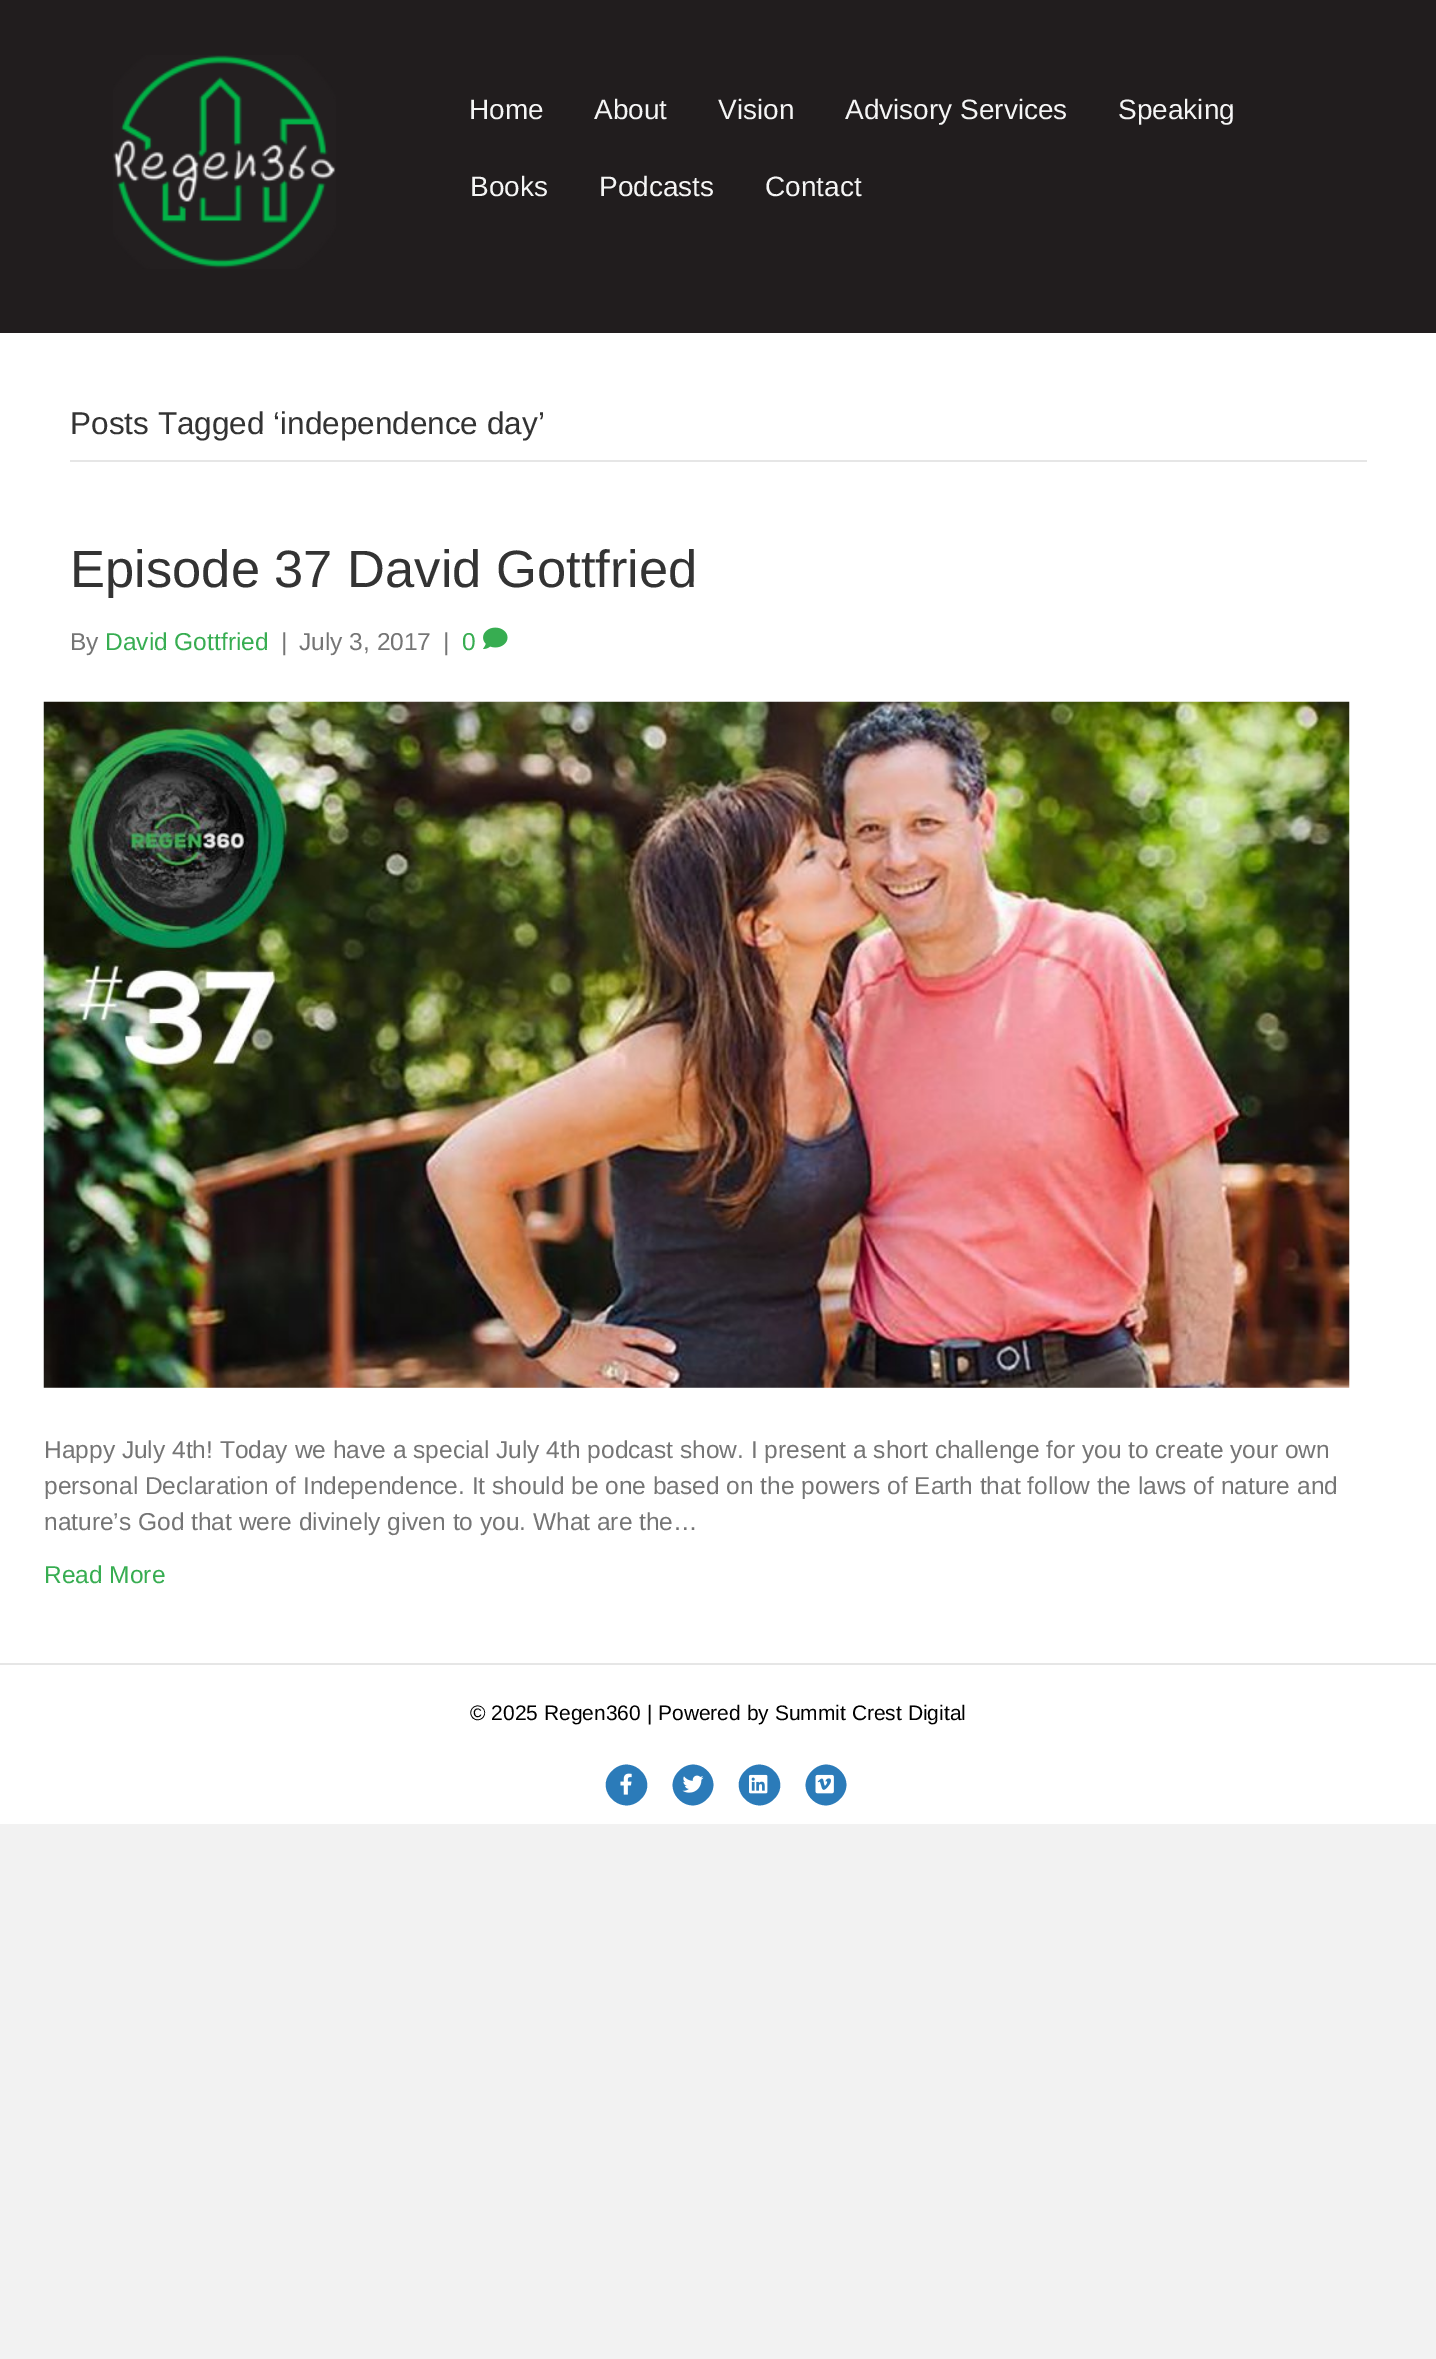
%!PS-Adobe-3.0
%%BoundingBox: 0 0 1436 2359
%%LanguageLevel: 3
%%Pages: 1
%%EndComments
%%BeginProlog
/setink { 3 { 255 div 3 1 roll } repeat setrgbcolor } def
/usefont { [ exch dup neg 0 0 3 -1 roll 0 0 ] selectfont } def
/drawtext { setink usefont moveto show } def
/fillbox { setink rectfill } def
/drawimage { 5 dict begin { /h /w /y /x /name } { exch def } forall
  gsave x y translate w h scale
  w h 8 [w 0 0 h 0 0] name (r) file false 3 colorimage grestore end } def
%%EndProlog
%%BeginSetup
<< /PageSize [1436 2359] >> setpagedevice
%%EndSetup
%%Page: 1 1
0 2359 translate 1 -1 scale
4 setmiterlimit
0 0 1436 2359 242 242 242 fillbox
0 0 1436 333 33 29 30 fillbox
(assets/img1.rgb) 113 55 223 214 drawimage
(Home) 469 119 /LiberationSans-Regular 28 245 245 245 drawtext
(About) 594 119 /LiberationSans-Regular 28 245 245 245 drawtext
(Vision) 718 119 /LiberationSans-Regular 28 245 245 245 drawtext
(Advisory Services) 845 119 /LiberationSans-Regular 28 245 245 245 drawtext
(Speaking) 1118 119 /LiberationSans-Regular 28 245 245 245 drawtext
(Books) 470 196 /LiberationSans-Regular 28 245 245 245 drawtext
(Podcasts) 599 196 /LiberationSans-Regular 28 245 245 245 drawtext
(Contact) 765 196 /LiberationSans-Regular 28 245 245 245 drawtext
0 333 1436 1330 255 255 255 fillbox
70 460 1297 2 230 230 230 fillbox
(Posts Tagged ‘independence day’) 70 434 /LiberationSans-Regular 31.5 51 51 51 drawtext
(Episode 37 David Gottfried) 70 587 /LiberationSans-Regular 52.5 51 51 51 drawtext
(By) 70 650 /LiberationSans-Regular 24.5 117 117 117 drawtext
(David Gottfried) 105 650 /LiberationSans-Regular 24.5 55 173 81 drawtext
(|) 281 650 /LiberationSans-Regular 24.5 117 117 117 drawtext
(July 3, 2017) 299 650 /LiberationSans-Regular 24.5 117 117 117 drawtext
(|) 443 650 /LiberationSans-Regular 24.5 117 117 117 drawtext
(0) 462 650 /LiberationSans-Regular 24.5 55 173 81 drawtext
(assets/img2.rgb) 483 627 25 22 drawimage
(assets/img3.rgb) 43 701 1307 687 drawimage
(Happy July 4th! Today we have a special July 4th podcast show. I present a short challenge for you to create your own) 44 1458 /LiberationSans-Regular 24.5 117 117 117 drawtext
(personal Declaration of Independence. It should be one based on the powers of Earth that follow the laws of nature and) 44 1494 /LiberationSans-Regular 24.5 117 117 117 drawtext
(nature’s God that were divinely given to you. What are the…) 44 1530 /LiberationSans-Regular 24.5 117 117 117 drawtext
(Read More) 44 1583 /LiberationSans-Regular 24.5 55 173 81 drawtext
0 1665 1436 159 255 255 255 fillbox
0 1663 1436 2 230 230 230 fillbox
(© 2025 Regen360 | Powered by Summit Crest Digital) 470 1720 /LiberationSans-Regular 21 0 0 0 drawtext
43 123 185 setink
612 1771 moveto 631 1752 660 1780 641 1799 curveto 622 1818 593 1790 612 1771 curveto closepath fill
(assets/img4.rgb) 620 1773 12 22 drawimage
679 1771 moveto 698 1752 726 1780 707 1799 curveto 688 1818 660 1790 679 1771 curveto closepath fill
(assets/img5.rgb) 682 1775 22 18 drawimage
745 1771 moveto 764 1752 793 1780 774 1799 curveto 755 1818 726 1790 745 1771 curveto closepath fill
(assets/img6.rgb) 749 1774 19 20 drawimage
812 1771 moveto 831 1752 859 1780 840 1799 curveto 821 1818 793 1790 812 1771 curveto closepath fill
(assets/img7.rgb) 815 1774 19 20 drawimage
showpage
%%EOF
